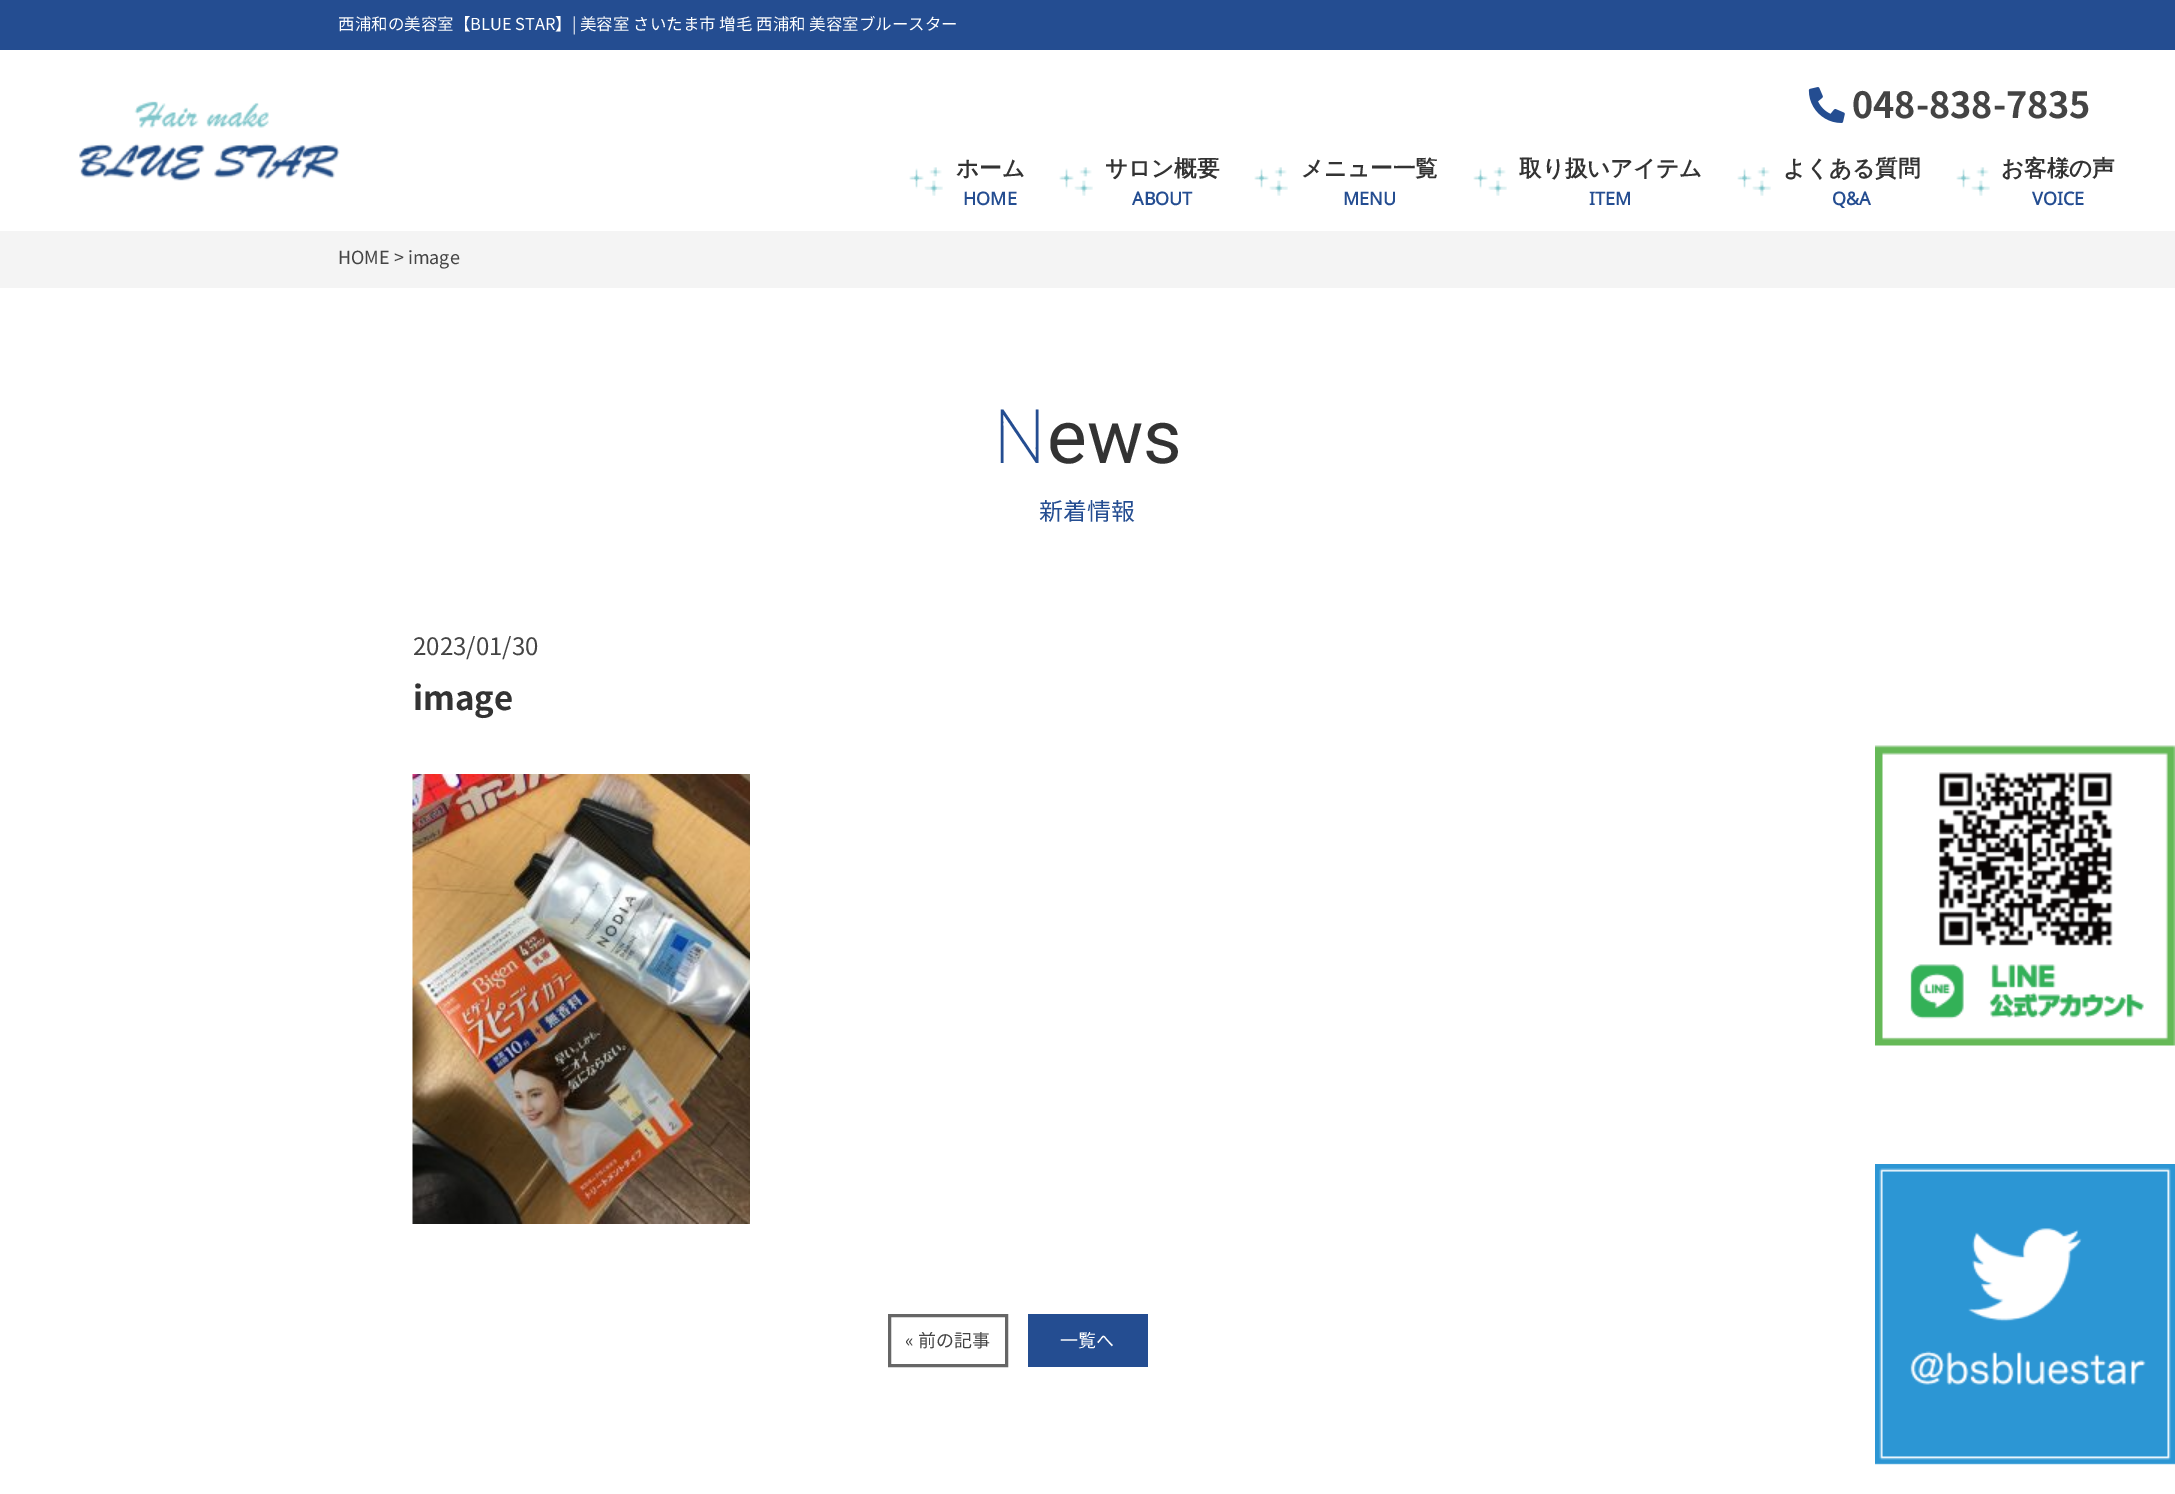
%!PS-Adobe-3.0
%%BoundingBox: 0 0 2175 1494
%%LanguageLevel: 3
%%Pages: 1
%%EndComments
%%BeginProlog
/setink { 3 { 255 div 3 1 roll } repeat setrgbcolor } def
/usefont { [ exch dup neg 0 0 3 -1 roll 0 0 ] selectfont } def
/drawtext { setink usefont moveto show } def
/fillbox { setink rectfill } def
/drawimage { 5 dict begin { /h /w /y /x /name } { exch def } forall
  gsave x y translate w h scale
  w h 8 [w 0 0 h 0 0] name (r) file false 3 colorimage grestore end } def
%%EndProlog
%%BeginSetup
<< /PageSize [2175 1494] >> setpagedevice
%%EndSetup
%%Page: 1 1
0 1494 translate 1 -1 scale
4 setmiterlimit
0 0 2175 1494 255 255 255 fillbox
0 0 2175 50 36 77 145 fillbox
(西浦和の美容室【BLUE STAR】| 美容室 さいたま市 増毛 西浦和 美容室ブルースター) 338 30 /NotoSansJP-Regular 16.5 255 255 255 drawtext
(assets/img1.rgb) 79 101 261 80 drawimage
(assets/img2.rgb) 1808 87 37 36 drawimage
(048-838-7835) 1852 118 /NotoSansJP-Bold 36 68 68 68 drawtext
(assets/img3.rgb) 909 167 34 29 drawimage
(ホーム) 956 176 /WenQuanYiZenHei-Bold 22.5 51 51 51 drawtext
(HOME) 963 205 /NotoSans-Bold 18 36 77 145 drawtext
(assets/img4.rgb) 1059 167 34 29 drawimage
(サロン概要) 1105 176 /WenQuanYiZenHei-Bold 22.5 51 51 51 drawtext
(ABOUT) 1132 205 /NotoSans-Bold 18 36 77 145 drawtext
(assets/img5.rgb) 1254 167 34 29 drawimage
(メニュー一覧) 1301 176 /WenQuanYiZenHei-Bold 22.5 51 51 51 drawtext
(MENU) 1343 205 /NotoSans-Bold 18 36 77 145 drawtext
(assets/img4.rgb) 1473 167 34 29 drawimage
(取り扱いアイテム) 1519 176 /WenQuanYiZenHei-Bold 22.5 51 51 51 drawtext
(ITEM) 1589 205 /NotoSans-Bold 18 36 77 145 drawtext
(assets/img3.rgb) 1737 167 34 29 drawimage
(よくある質問) 1783 176 /WenQuanYiZenHei-Bold 22.5 51 51 51 drawtext
(Q&A) 1832 205 /NotoSans-Bold 18 36 77 145 drawtext
(assets/img4.rgb) 1956 167 34 29 drawimage
(お客様の声) 2001 176 /WenQuanYiZenHei-Bold 22.5 51 51 51 drawtext
(VOICE) 2032 205 /NotoSans-Bold 18 36 77 145 drawtext
0 231 2175 57 244 244 244 fillbox
(HOME > image) 338 264 /NotoSansJP-Regular 18 68 68 68 drawtext
(N) 993 463 /NotoSans-ExtraLight 75 36 77 145 drawtext
(ews) 1047 463 /Roboto-Regular 75 51 51 51 drawtext
(新着情報) 1039 520 /NotoSansJP-Regular 24 36 77 145 drawtext
(2023/01/30) 413 655 /NotoSansJP-Regular 24 68 68 68 drawtext
(image) 413 710 /NotoSansJP-Bold 33 51 51 51 drawtext
(assets/img6.rgb) 412 774 338 450 drawimage
102 102 102 setink
3 setlinewidth
889.5 1315.5 117 50 rectstroke
(« 前の記事) 905 1347 /NotoSansJP-Regular 18 68 68 68 drawtext
1028 1314 120 53 36 77 145 fillbox
(一覧へ) 1060 1347 /NotoSansJP-Regular 18 255 255 255 drawtext
(assets/img7.rgb) 1875 745 300 301 drawimage
(assets/img8.rgb) 1875 1164 300 301 drawimage
showpage
%%EOF
